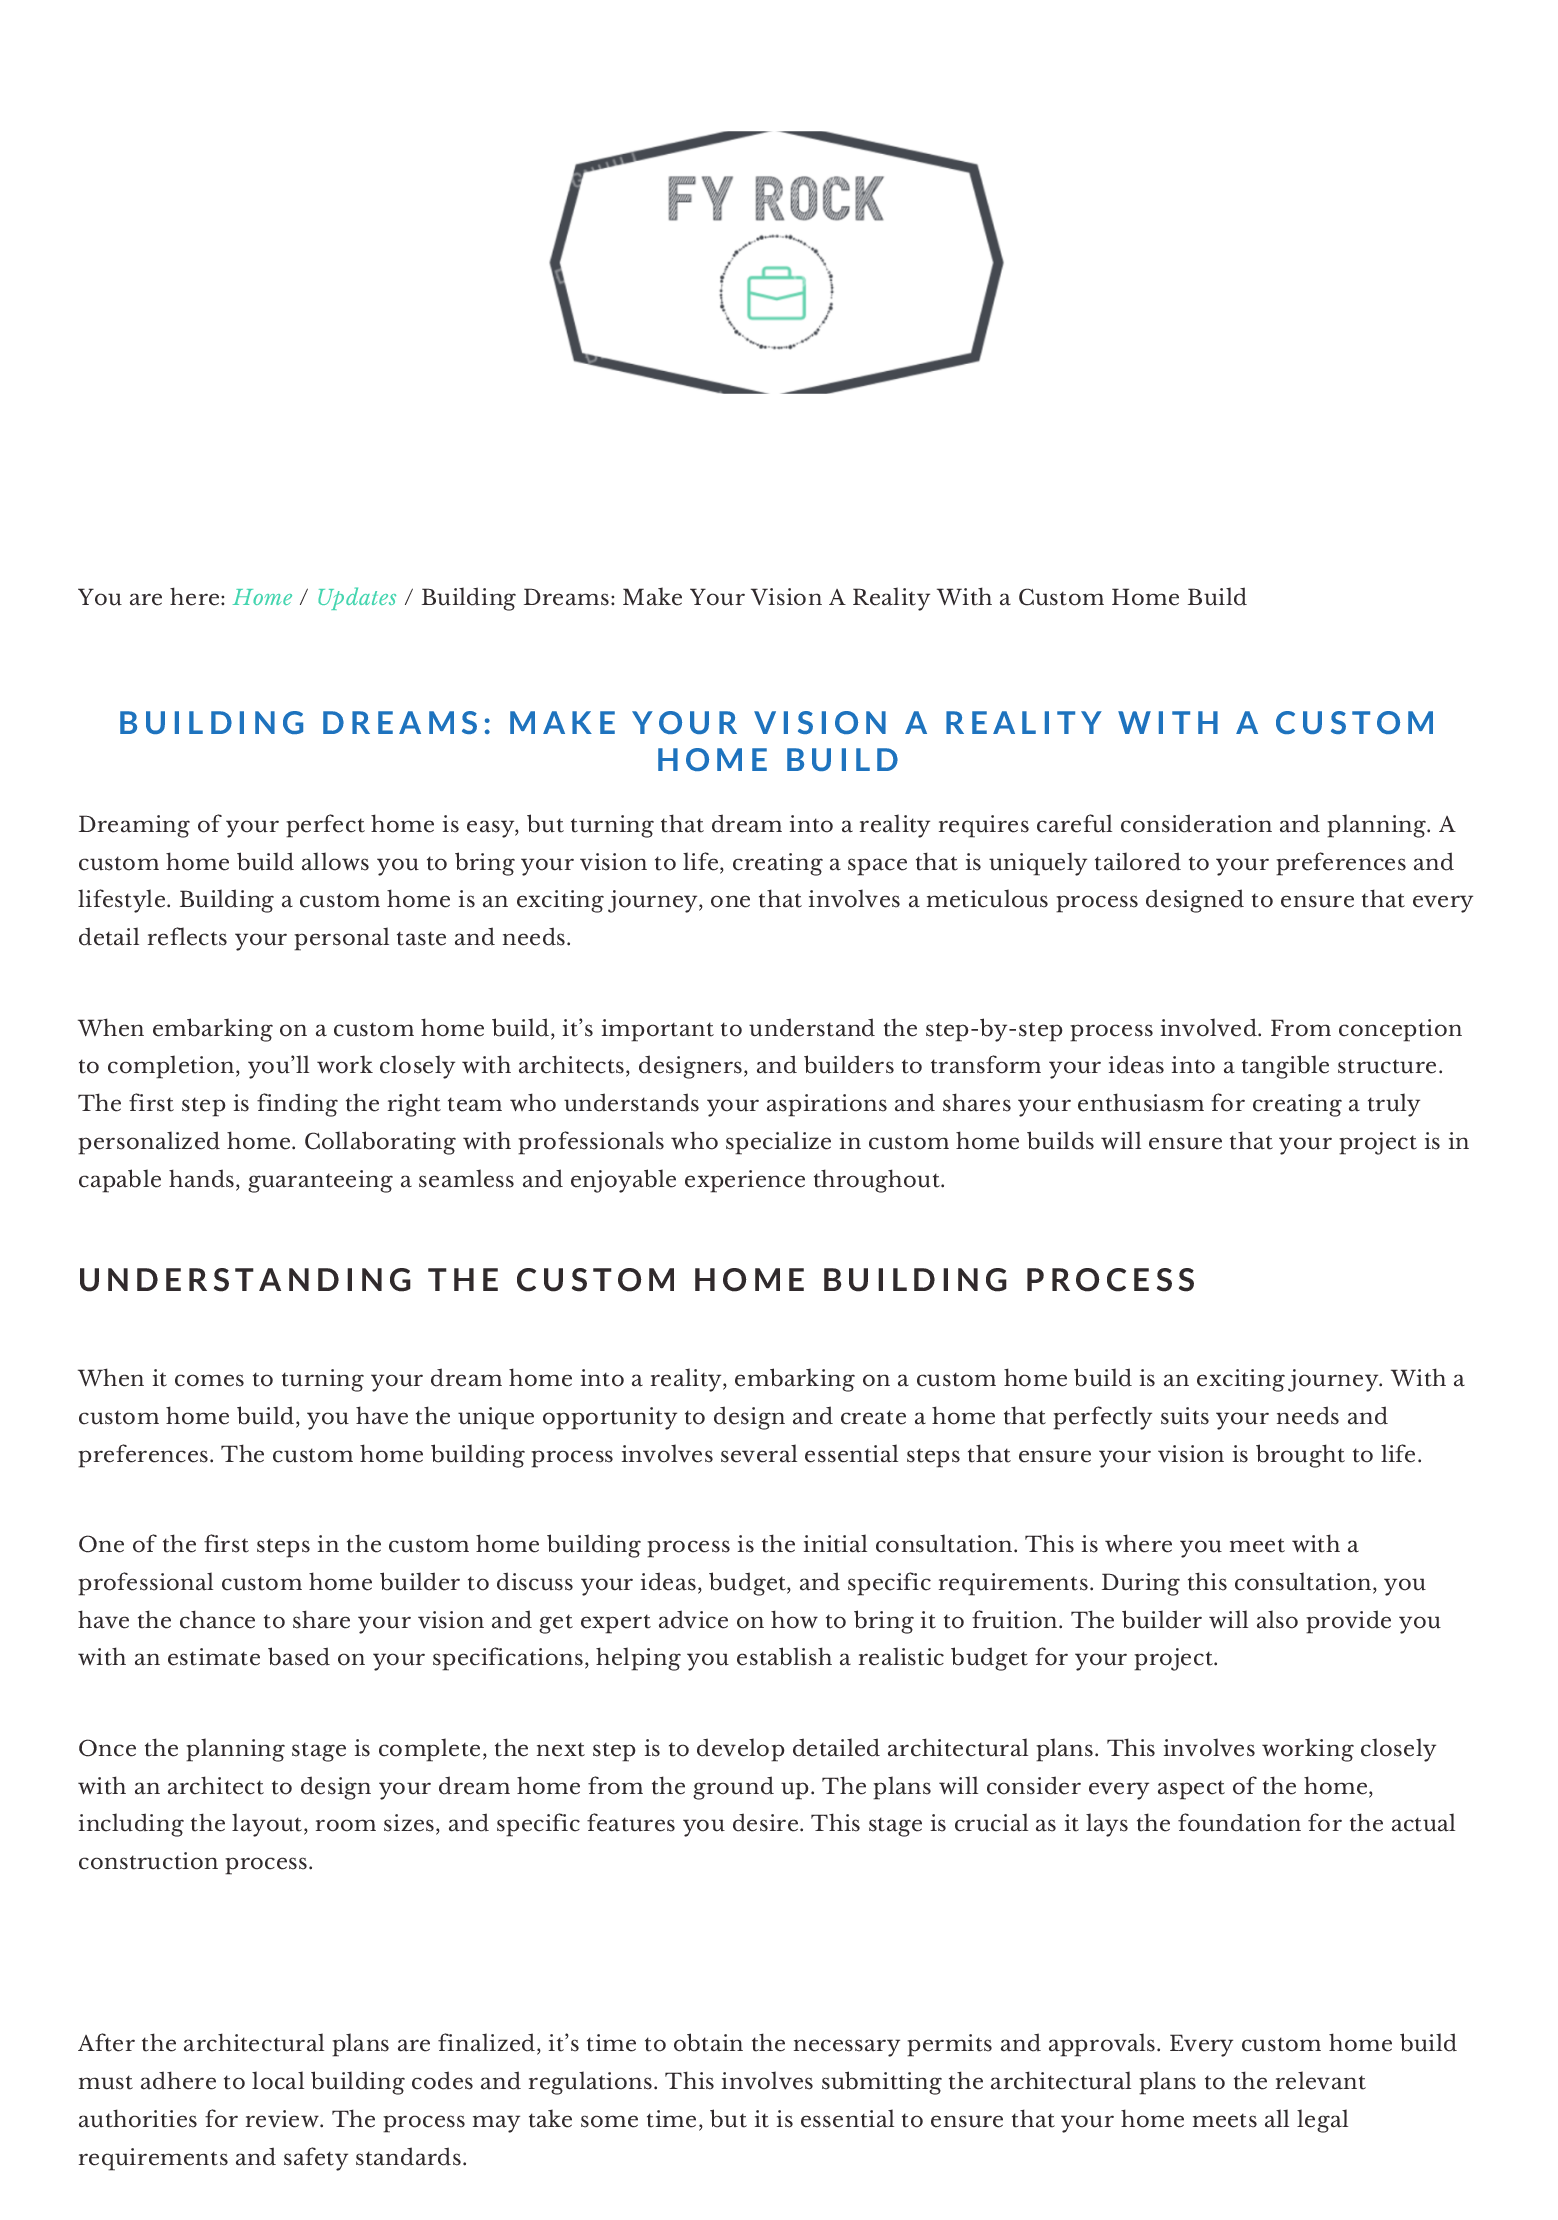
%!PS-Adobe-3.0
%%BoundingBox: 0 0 1558 2220
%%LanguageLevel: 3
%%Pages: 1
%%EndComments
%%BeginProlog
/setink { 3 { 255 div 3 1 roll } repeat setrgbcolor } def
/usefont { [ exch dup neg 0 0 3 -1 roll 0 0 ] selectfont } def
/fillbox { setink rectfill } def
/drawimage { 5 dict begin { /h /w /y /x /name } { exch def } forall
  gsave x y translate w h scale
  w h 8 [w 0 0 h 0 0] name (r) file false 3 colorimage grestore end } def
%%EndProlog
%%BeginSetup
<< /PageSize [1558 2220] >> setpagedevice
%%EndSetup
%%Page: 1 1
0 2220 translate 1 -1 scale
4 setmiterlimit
0 0 1558 2220 255 255 255 fillbox
(assets/img1.rgb) 548 131 457 263 drawimage
/LibreBaskerville-Regular 21 usefont
48 42 44 setink
78 605 moveto 0.42 0 (You are here:) ashow
/LibreBaskerville-Italic 21 usefont
68 213 175 setink
233 605 moveto 0.42 0 (Home) ashow
/LibreBaskerville-Regular 21 usefont
48 42 44 setink
299 605 moveto 0.42 0 (/) ashow
/LibreBaskerville-Italic 21 usefont
68 213 175 setink
316 605 moveto 0.42 0 (Updates) ashow
/LibreBaskerville-Regular 21 usefont
48 42 44 setink
404 605 moveto 0.42 0 (/ Building Dreams: Make Your Vision A Reality With a Custom Home Build) ashow
/Lato-Bold 31.5 usefont
30 115 190 setink
118 734 moveto 5.25 0 (BUILDING DREAMS: MAKE YOUR VISION A REALITY WITH A CUSTOM) ashow
656 771 moveto 5.25 0 (HOME BUILD) ashow
/LibreBaskerville-Regular 21 usefont
48 42 44 setink
78 832 moveto 0.42 0 (Dreaming of your perfect home is easy, but turning that dream into a reality requires careful consideration and planning. A) ashow
78 870 moveto 0.42 0 (custom home build allows you to bring your vision to life, creating a space that is uniquely tailored to your preferences and) ashow
78 907 moveto 0.42 0 (lifestyle. Building a custom home is an exciting journey, one that involves a meticulous process designed to ensure that every) ashow
78 945 moveto 0.42 0 (detail reflects your personal taste and needs.) ashow
78 1036 moveto 0.42 0 (When embarking on a custom home build, it’s important to understand the step-by-step process involved. From conception) ashow
78 1073 moveto 0.42 0 (to completion, you’ll work closely with architects, designers, and builders to transform your ideas into a tangible structure.) ashow
78 1111 moveto 0.42 0 (The first step is finding the right team who understands your aspirations and shares your enthusiasm for creating a truly) ashow
78 1149 moveto 0.42 0 (personalized home. Collaborating with professionals who specialize in custom home builds will ensure that your project is in) ashow
78 1187 moveto 0.42 0 (capable hands, guaranteeing a seamless and enjoyable experience throughout.) ashow
/Lato-Bold 31.5 usefont
78 1291 moveto 5.25 0 (UNDERSTANDING THE CUSTOM HOME BUILDING PROCESS) ashow
/LibreBaskerville-Regular 21 usefont
78 1386 moveto 0.42 0 (When it comes to turning your dream home into a reality, embarking on a custom home build is an exciting journey. With a) ashow
78 1424 moveto 0.42 0 (custom home build, you have the unique opportunity to design and create a home that perfectly suits your needs and) ashow
78 1462 moveto 0.42 0 (preferences. The custom home building process involves several essential steps that ensure your vision is brought to life.) ashow
78 1552 moveto 0.42 0 (One of the first steps in the custom home building process is the initial consultation. This is where you meet with a) ashow
78 1590 moveto 0.42 0 (professional custom home builder to discuss your ideas, budget, and specific requirements. During this consultation, you) ashow
78 1628 moveto 0.42 0 (have the chance to share your vision and get expert advice on how to bring it to fruition. The builder will also provide you) ashow
78 1665 moveto 0.42 0 (with an estimate based on your specifications, helping you establish a realistic budget for your project.) ashow
78 1756 moveto 0.42 0 (Once the planning stage is complete, the next step is to develop detailed architectural plans. This involves working closely) ashow
78 1794 moveto 0.42 0 (with an architect to design your dream home from the ground up. The plans will consider every aspect of the home,) ashow
78 1831 moveto 0.42 0 (including the layout, room sizes, and specific features you desire. This stage is crucial as it lays the foundation for the actual) ashow
78 1869 moveto 0.42 0 (construction process.) ashow
78 2051 moveto 0.42 0 (After the architectural plans are finalized, it’s time to obtain the necessary permits and approvals. Every custom home build) ashow
78 2089 moveto 0.42 0 (must adhere to local building codes and regulations. This involves submitting the architectural plans to the relevant) ashow
78 2127 moveto 0.42 0 (authorities for review. The process may take some time, but it is essential to ensure that your home meets all legal) ashow
78 2165 moveto 0.42 0 (requirements and safety standards.) ashow
showpage
%%EOF
